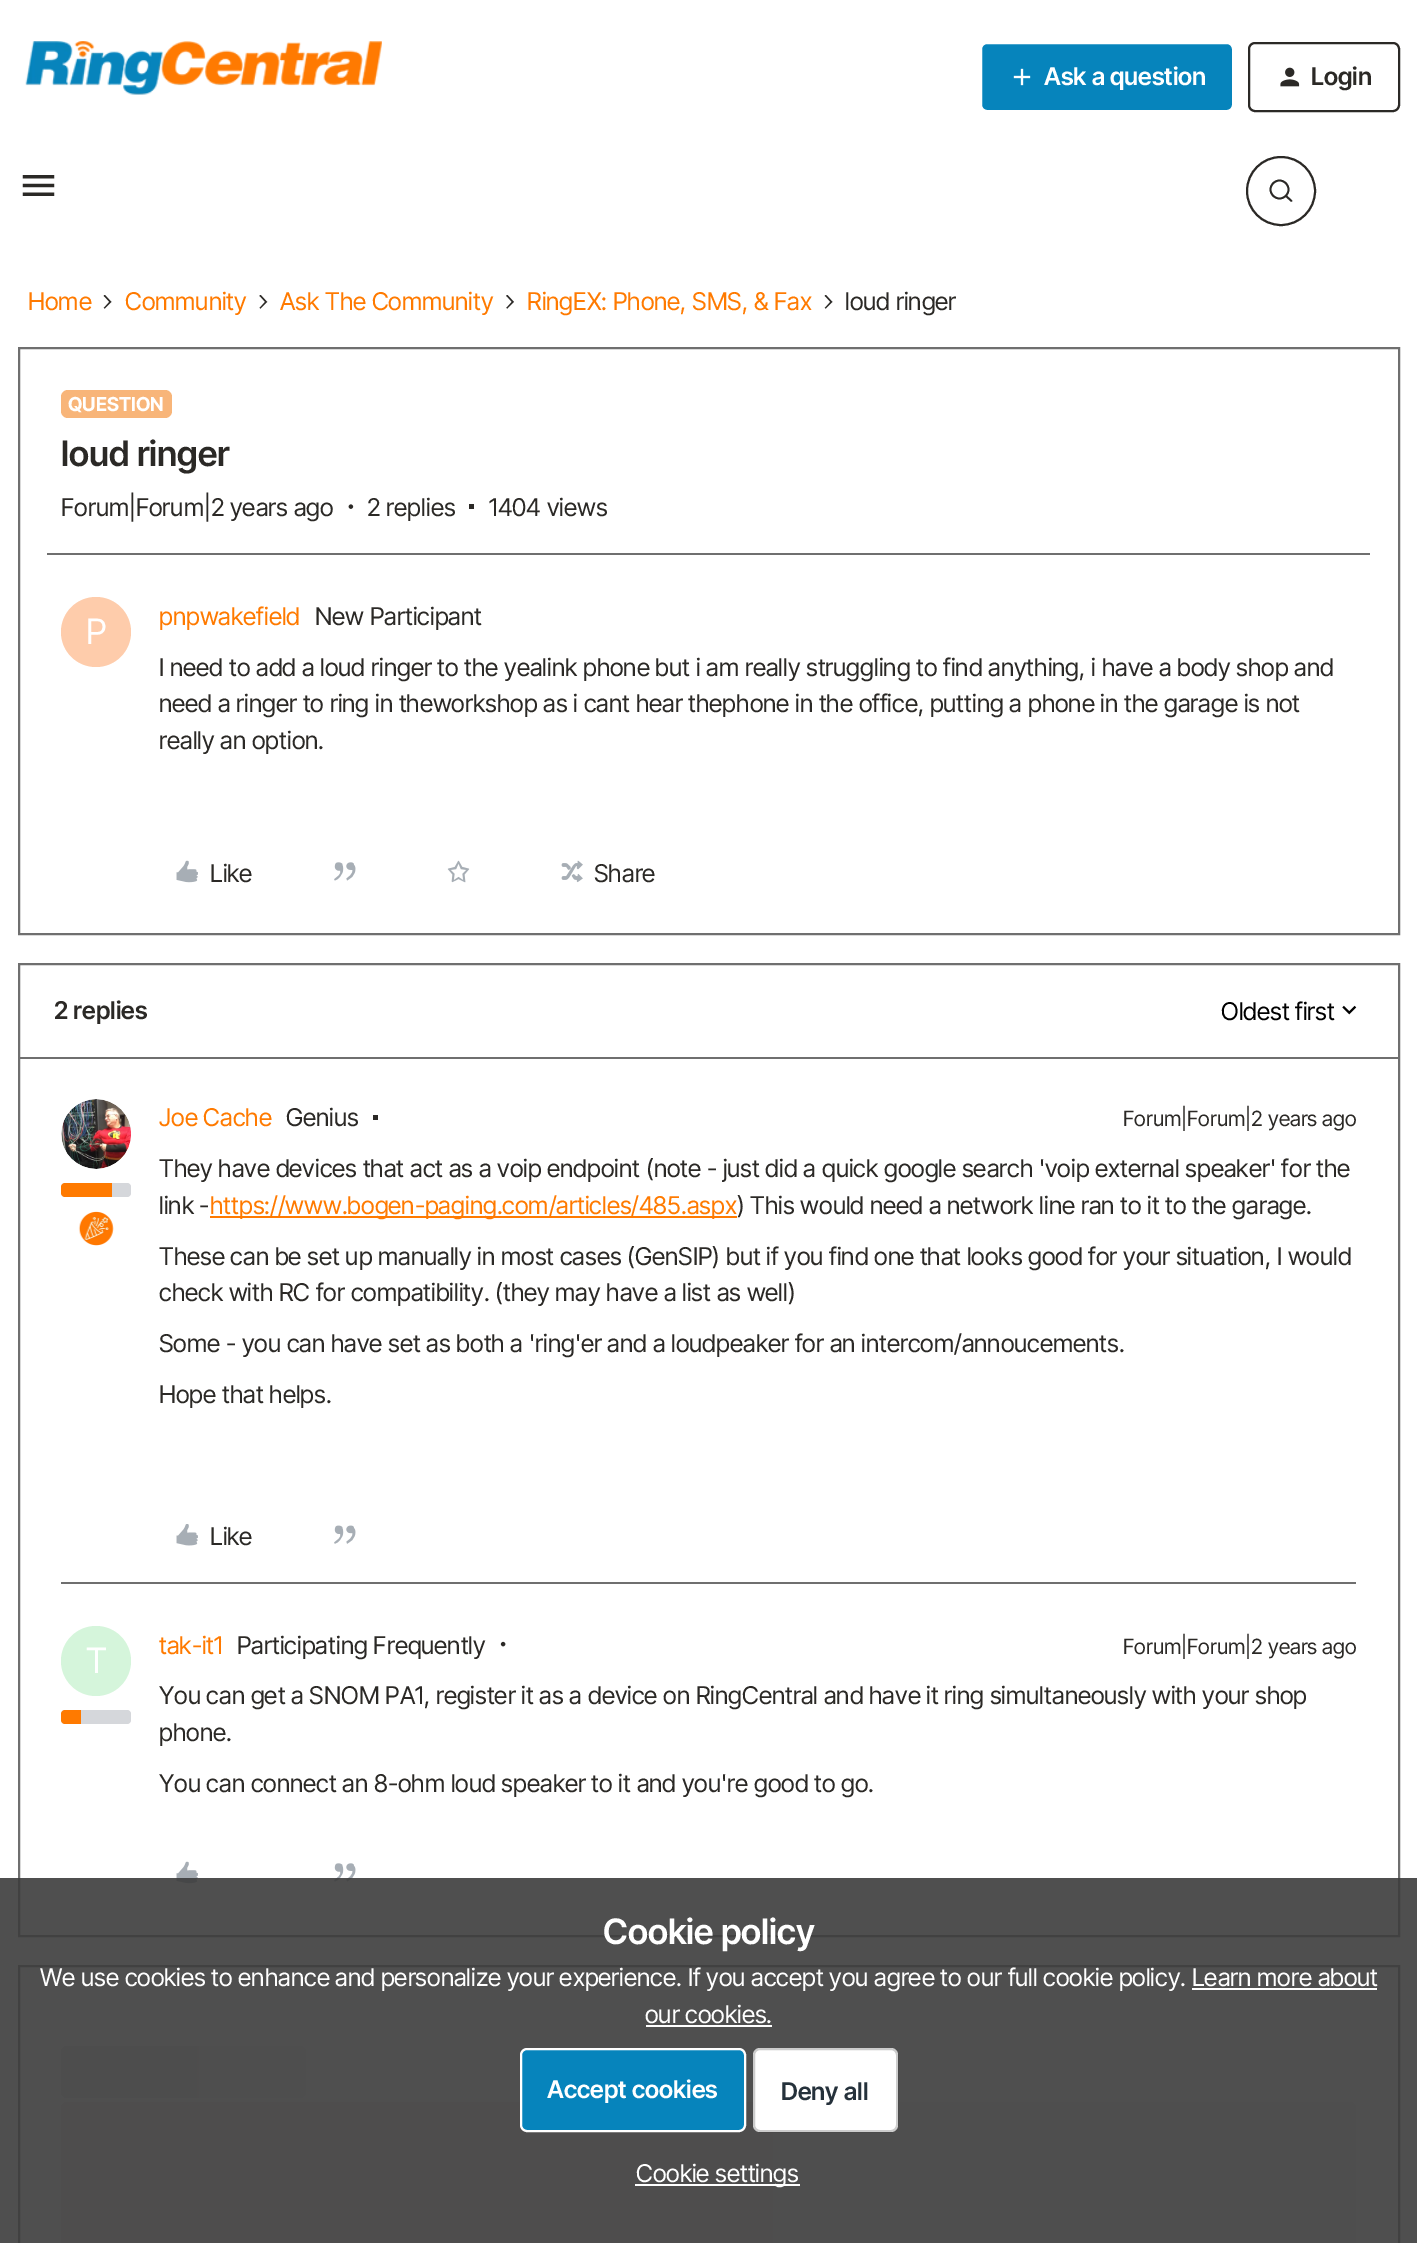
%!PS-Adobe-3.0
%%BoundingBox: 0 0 1417 2243
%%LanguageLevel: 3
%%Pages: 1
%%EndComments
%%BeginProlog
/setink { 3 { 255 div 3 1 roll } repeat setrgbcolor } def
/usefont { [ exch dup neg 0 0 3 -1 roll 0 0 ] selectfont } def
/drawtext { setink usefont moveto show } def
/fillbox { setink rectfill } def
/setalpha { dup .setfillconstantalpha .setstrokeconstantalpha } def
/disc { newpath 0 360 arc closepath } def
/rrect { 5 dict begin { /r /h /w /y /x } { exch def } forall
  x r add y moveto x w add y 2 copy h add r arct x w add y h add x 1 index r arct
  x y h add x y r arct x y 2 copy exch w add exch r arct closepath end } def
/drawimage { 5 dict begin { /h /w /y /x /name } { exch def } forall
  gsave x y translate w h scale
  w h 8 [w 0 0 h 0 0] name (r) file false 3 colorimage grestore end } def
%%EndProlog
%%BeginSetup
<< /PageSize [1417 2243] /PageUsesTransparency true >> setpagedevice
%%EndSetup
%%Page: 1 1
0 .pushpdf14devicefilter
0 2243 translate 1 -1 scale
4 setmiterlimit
0 0 1417 2243 255 255 255 fillbox
(assets/img1.rgb) 25 41 357 54 drawimage
6 132 188 setink
981 43 252 68 6 rrect gsave fill grestore
255 255 255 setink
2 setlinewidth
stroke
(assets/img2.rgb) 1013 68 18 18 drawimage
(Ask a question) 1044 85 /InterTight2-SemiBold 24.5 255 255 255 drawtext
43 41 38 setink
1249 43 150 68 6 rrect stroke
(assets/img3.rgb) 1280 67 20 20 drawimage
(Login) 1311 85 /InterTight2-SemiBold 24.5 43 41 38 drawtext
(assets/img4.rgb) 22 175 33 21 drawimage
1281 191 34 disc stroke
1.8 setlinewidth
1279.5 189.5 9 disc stroke
1 setlinecap
1286 196 moveto 1291.5 201 lineto stroke
(Home) 28 310 /InterTight-Regular 24.5 255 122 0 drawtext
(assets/img5.rgb) 103 295 9 14 drawimage
(Community) 125 310 /InterTight-Regular 24.5 255 122 0 drawtext
(assets/img6.rgb) 259 295 9 14 drawimage
(Ask The Community) 280 310 /InterTight-Regular 24.5 255 122 0 drawtext
(assets/img7.rgb) 506 295 8 14 drawimage
(RingEX: Phone, SMS, & Fax) 527 310 /InterTight-Regular 24.5 255 122 0 drawtext
(assets/img5.rgb) 824 295 9 14 drawimage
(loud ringer) 845 310 /InterTight-Regular 24.5 43 41 38 drawtext
111 111 111 setink
2 setlinewidth
0 setlinecap
19 348 1380 586 rectstroke
248 181 121 setink
61 390 111 28 7 rrect fill
(QUESTION) 68 411 /InterTight-Bold 19.25 255 255 255 drawtext
(loud ringer) 61 466 /InterTight-SemiBold 35 43 41 38 drawtext
(Forum|Forum|2 years ago) 61 516 /InterTight-Regular 24.5 43 41 38 drawtext
(assets/img8.rgb) 348 504 6 5 drawimage
(2 replies) 367 516 /InterTight-Regular 24.5 43 41 38 drawtext
469 504 5 5 43 41 38 fillbox
(1404 views) 489 516 /InterTight-Regular 24.5 43 41 38 drawtext
47 553 1323 2 111 111 111 fillbox
254 204 171 setink
96 632 35 disc fill
(P) 86 644 /InterTight-Regular 35 255 255 255 drawtext
(pnpwakefield) 159 625 /InterTight-Regular 24.5 255 122 0 drawtext
(New Participant) 315 625 /InterTight-Regular 24.5 43 41 38 drawtext
(I need to add a loud ringer to the yealink phone but i am really struggling to find anything, i have a body shop and) 159 676 /InterTight-Regular 24.5 43 41 38 drawtext
(need a ringer to ring in theworkshop as i cant hear thephone in the office, putting a phone in the garage is not) 159 712 /InterTight-Regular 24.5 43 41 38 drawtext
(really an option.) 159 749 /InterTight-Regular 24.5 43 41 38 drawtext
(assets/img9.rgb) 176 860 22 23 drawimage
(Like) 210 882 /InterTight-Regular 24.5 43 41 38 drawtext
(assets/img10.rgb) 334 862 22 19 drawimage
(assets/img11.rgb) 447 860 23 23 drawimage
(assets/img12.rgb) 561 860 22 23 drawimage
(Share) 594 882 /InterTight-Regular 24.5 43 41 38 drawtext
111 111 111 setink
19 964 1380 972 rectstroke
19 1057 1379 2 111 111 111 fillbox
(2 replies) 54 1019 /InterTight-SemiBold 24.5 43 41 38 drawtext
(Oldest first) 1221 1020 /InterTight-Regular 24.5 0 0 0 drawtext
(assets/img13.rgb) 1342 1005 15 10 drawimage
(assets/img14.rgb) 61 1099 70 70 drawimage
213 215 219 setink
61 1183 70 14 4 rrect fill
255 122 0 setink
65 1183 moveto 112 1183 lineto 112 1197 lineto 65 1197 lineto 63 1197 61 1195 61 1193 curveto 61 1187 lineto 61 1185 63 1183 65 1183 curveto closepath fill
(assets/img15.rgb) 78 1211 36 35 drawimage
(Joe Cache) 159 1126 /InterTight-Regular 24.5 255 122 0 drawtext
(Genius) 286 1126 /InterTight-Regular 24.5 43 41 38 drawtext
373 1115 5 5 43 41 38 fillbox
(Forum|Forum|2 years ago) 1123 1126 /InterTight-Regular 21 43 41 38 drawtext
(They have devices that act as a voip endpoint \(note - just did a quick google search 'voip external speaker' for the) 159 1177 /InterTight-Regular 24.5 43 41 38 drawtext
(link -) 159 1214 /InterTight-Regular 24.5 43 41 38 drawtext
210 1216 527 2 255 122 0 fillbox
(https://www.bogen-paging.com/articles/485.aspx) 210 1214 /InterTight-Regular 24.5 255 122 0 drawtext
(\) This would need a network line ran to it to the garage.) 737 1214 /InterTight-Regular 24.5 43 41 38 drawtext
(These can be set up manually in most cases \(GenSIP\) but if you find one that looks good for your situation, I would) 159 1265 /InterTight-Regular 24.5 43 41 38 drawtext
(check with RC for compatibility. \(they may have a list as well\)) 159 1301 /InterTight-Regular 24.5 43 41 38 drawtext
(Some - you can have set as both a 'ring'er and a loudpeaker for an intercom/annoucements.) 159 1352 /InterTight-Regular 24.5 43 41 38 drawtext
(Hope that helps.) 159 1403 /InterTight-Regular 24.5 43 41 38 drawtext
(assets/img16.rgb) 176 1524 22 22 drawimage
(Like) 210 1545 /InterTight-Regular 24.5 43 41 38 drawtext
(assets/img17.rgb) 334 1525 22 19 drawimage
61 1582 1295 2 111 111 111 fillbox
213 245 219 setink
96 1661 35 disc fill
(T) 86 1673 /InterTight-Regular 35 255 255 255 drawtext
213 215 219 setink
61 1710 70 14 4 rrect fill
255 122 0 setink
65 1710 moveto 81 1710 lineto 81 1724 lineto 65 1724 lineto 63 1724 61 1722 61 1720 curveto 61 1714 lineto 61 1712 63 1710 65 1710 curveto closepath fill
(tak-it1) 159 1654 /InterTight-Regular 24.5 255 122 0 drawtext
(Participating Frequently) 237 1654 /InterTight-Regular 24.5 43 41 38 drawtext
(assets/img18.rgb) 500 1641 6 6 drawimage
(Forum|Forum|2 years ago) 1123 1654 /InterTight-Regular 21 43 41 38 drawtext
(You can get a SNOM PA1, register it as a device on RingCentral and have it ring simultaneously with your shop) 159 1704 /InterTight-Regular 24.5 43 41 38 drawtext
(phone.) 159 1741 /InterTight-Regular 24.5 43 41 38 drawtext
(You can connect an 8-ohm loud speaker to it and you're good to go.) 159 1792 /InterTight-Regular 24.5 43 41 38 drawtext
(assets/img9.rgb) 176 1861 22 23 drawimage
(assets/img10.rgb) 334 1863 22 19 drawimage
111 111 111 setink
19 1966 1380 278 rectstroke
gsave 61 2046 245 52 7 rrect clip newpath
<< /ShadingType 2 /ColorSpace /DeviceRGB /Coords [61 2072 551 2072] /Extend [true true] /Function << /FunctionType 3 /Domain [0 1] /Functions [<< /FunctionType 2 /Domain [0 1] /C0 [0.933 0.933 0.933] /C1 [0.933 0.933 0.933] /N 1 >> << /FunctionType 2 /Domain [0 1] /C0 [0.933 0.933 0.933] /C1 [0.969 0.965 0.965] /N 1 >> << /FunctionType 2 /Domain [0 1] /C0 [0.969 0.965 0.965] /C1 [0.933 0.933 0.933] /N 1 >> << /FunctionType 2 /Domain [0 1] /C0 [0.933 0.933 0.933] /C1 [0.933 0.933 0.933] /N 1 >>] /Bounds [0.25 0.5 0.75] /Encode [0 1 0 1 0 1 0 1] >> >> shfill grestore
gsave 61 2102 1295 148 7 rrect clip newpath
<< /ShadingType 2 /ColorSpace /DeviceRGB /Coords [61 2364 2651 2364] /Extend [true true] /Function << /FunctionType 3 /Domain [0 1] /Functions [<< /FunctionType 2 /Domain [0 1] /C0 [0.937 0.933 0.933] /C1 [0.937 0.933 0.933] /N 1 >> << /FunctionType 2 /Domain [0 1] /C0 [0.937 0.933 0.933] /C1 [0.969 0.969 0.969] /N 1 >> << /FunctionType 2 /Domain [0 1] /C0 [0.969 0.969 0.969] /C1 [0.937 0.933 0.933] /N 1 >> << /FunctionType 2 /Domain [0 1] /C0 [0.937 0.933 0.933] /C1 [0.937 0.933 0.933] /N 1 >>] /Bounds [0.25 0.5 0.75] /Encode [0 1 0 1 0 1 0 1] >> >> shfill grestore
0.9 setalpha
0 1878 1417 365 60 60 60 fillbox
1 setalpha
(Cookie policy) 603 1944 /InterTight-SemiBold 35 255 255 255 drawtext
(We use cookies to enhance and personalize your experience. If you accept you agree to our full cookie policy. Learn more about) 40 1986 /InterTight-Regular 24.5 255 255 255 drawtext
1192 1988 185 2 255 255 255 fillbox
(our cookies.) 645 2023 /InterTight-Regular 24.5 255 255 255 drawtext
646 2025 126 2 255 255 255 fillbox
6 132 188 setink
521 2049 224 82 6 rrect gsave fill grestore
255 255 255 setink
stroke
(Accept cookies) 547 2098 /InterTight2-SemiBold 24.5 255 255 255 drawtext
753 2048 145 84 7 rrect fill
0.2 setalpha
0 0 0 setink
754 2049 143 82 6 rrect stroke
1 setalpha
(Deny all) 781 2100 /InterTight2-SemiBold 24.5 37 49 59 drawtext
635 2184 165 2 255 255 255 fillbox
(Cookie settings) 636 2182 /InterTight-Regular 24.5 255 255 255 drawtext
.poppdf14devicefilter showpage
%%EOF
